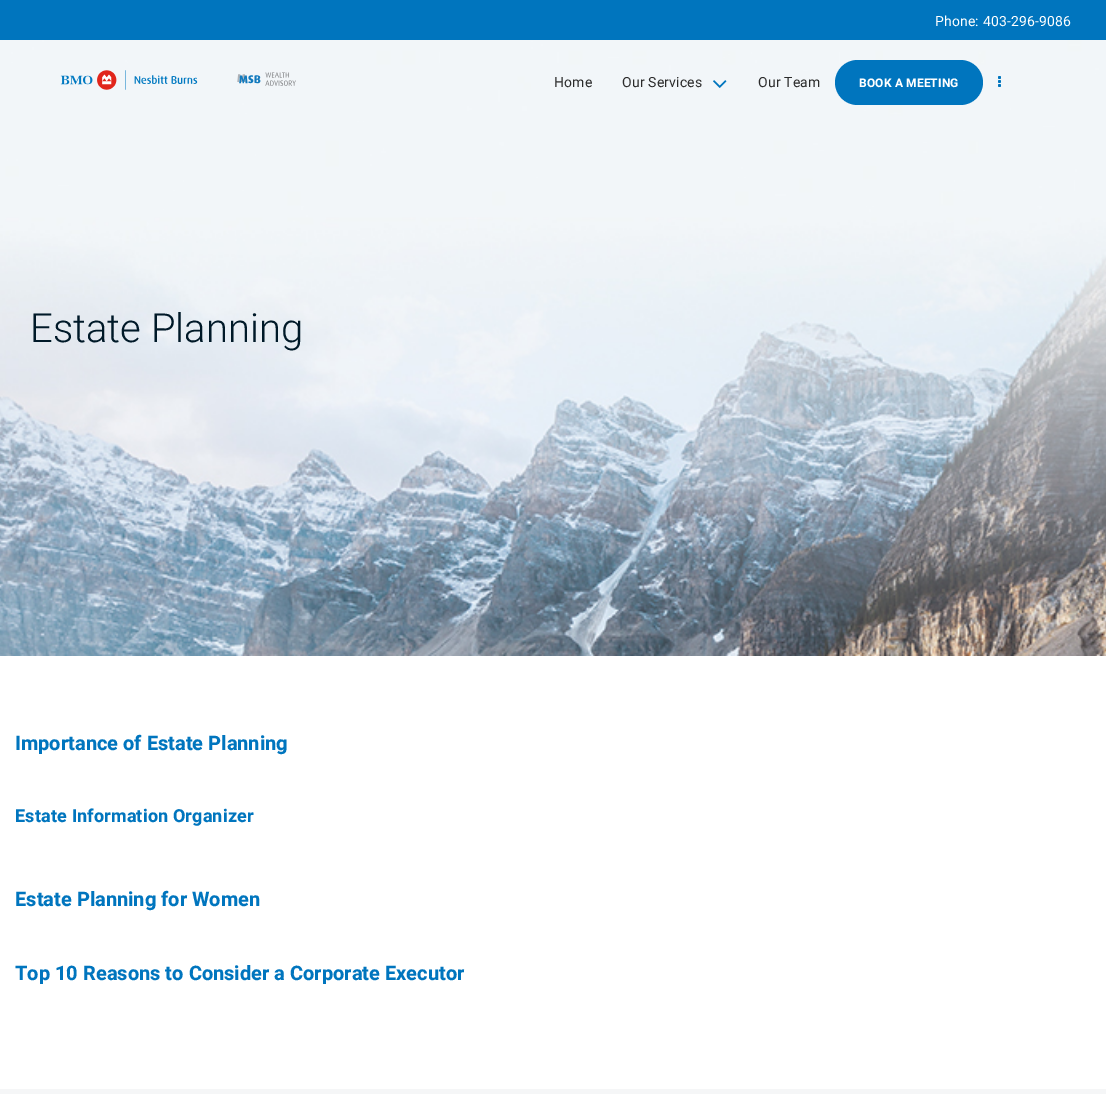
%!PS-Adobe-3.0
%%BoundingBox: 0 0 1106 1094
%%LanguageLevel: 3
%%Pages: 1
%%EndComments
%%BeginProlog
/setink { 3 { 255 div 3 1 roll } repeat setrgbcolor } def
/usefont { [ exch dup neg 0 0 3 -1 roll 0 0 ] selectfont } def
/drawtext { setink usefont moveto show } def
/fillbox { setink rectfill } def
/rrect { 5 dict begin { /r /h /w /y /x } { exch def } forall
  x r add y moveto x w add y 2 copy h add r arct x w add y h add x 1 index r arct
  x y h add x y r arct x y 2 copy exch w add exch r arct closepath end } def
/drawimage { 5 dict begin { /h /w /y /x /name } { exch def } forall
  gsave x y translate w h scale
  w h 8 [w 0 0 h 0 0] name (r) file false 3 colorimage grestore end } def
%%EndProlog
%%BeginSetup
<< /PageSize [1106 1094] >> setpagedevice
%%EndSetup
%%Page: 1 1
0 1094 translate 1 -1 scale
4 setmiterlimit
0 0 1106 1094 255 255 255 fillbox
0 0 1106 40 0 117 190 fillbox
/Heebo-Regular 14 usefont
255 255 255 setink
935 26 moveto 0.15 0 (Phone: 403-296-9086) ashow
(assets/img4.rgb) 0 40 1106 616 drawimage
(assets/img1.rgb) 60 70 236 20 drawimage
43 43 43 setink
554 87 moveto 0.15 0 (Home) ashow
622 87 moveto 0.15 0 (Our Services) ashow
(assets/img2.rgb) 713 80 14 8 drawimage
758 87 moveto 0.15 0 (Our Team) ashow
0 117 190 setink
835 60 148 45 22.5 rrect fill
/Heebo-Bold 12 usefont
255 255 255 setink
859 87 moveto 0.15 0 (BOOK A MEETING) ashow
(assets/img3.rgb) 998 76 3 11 drawimage
(Estate Planning) 30 342 /Heebo-Light 40 0 25 40 drawtext
(Importance of Estate Planning) 15 750 /Heebo-Bold 20 0 117 190 drawtext
/Heebo-Bold 18 usefont
15 822 moveto 0.15 0 (Estate Information Organizer) ashow
(Estate Planning for Women) 15 906 /Heebo-Bold 20 0 117 190 drawtext
(Top 10 Reasons to Consider a Corporate Executor) 15 980 /Heebo-Bold 20 0 117 190 drawtext
0 1089 1106 5 245 246 247 fillbox
showpage
%%EOF
